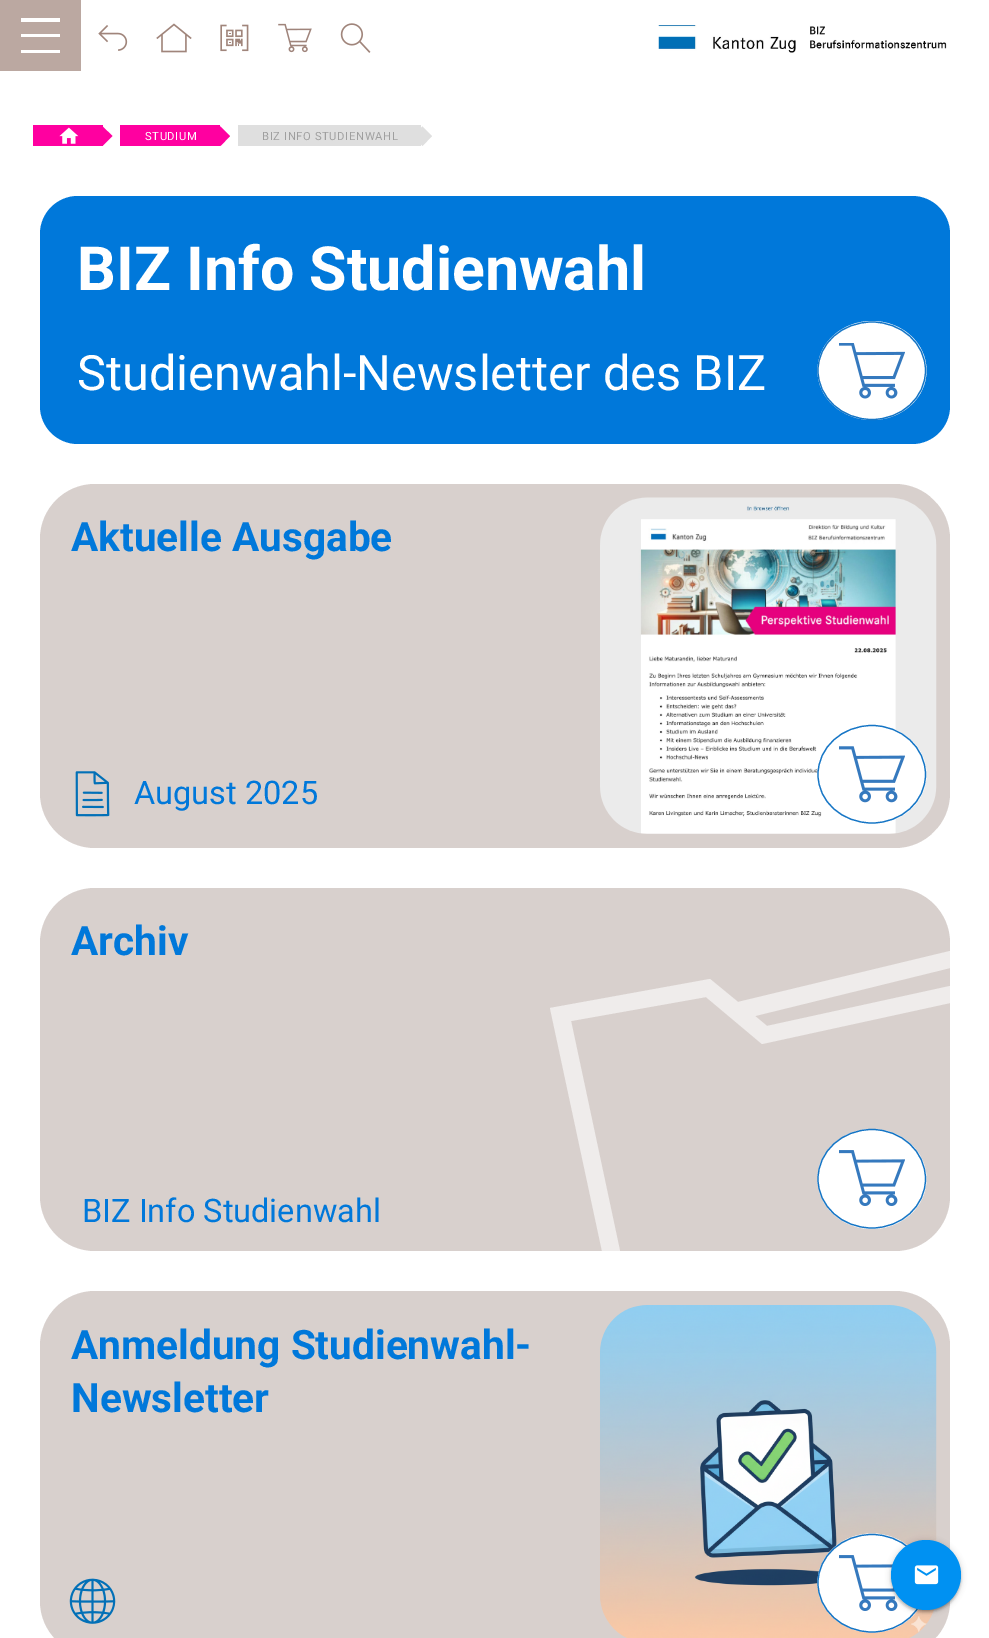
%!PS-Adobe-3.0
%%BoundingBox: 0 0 989 1638
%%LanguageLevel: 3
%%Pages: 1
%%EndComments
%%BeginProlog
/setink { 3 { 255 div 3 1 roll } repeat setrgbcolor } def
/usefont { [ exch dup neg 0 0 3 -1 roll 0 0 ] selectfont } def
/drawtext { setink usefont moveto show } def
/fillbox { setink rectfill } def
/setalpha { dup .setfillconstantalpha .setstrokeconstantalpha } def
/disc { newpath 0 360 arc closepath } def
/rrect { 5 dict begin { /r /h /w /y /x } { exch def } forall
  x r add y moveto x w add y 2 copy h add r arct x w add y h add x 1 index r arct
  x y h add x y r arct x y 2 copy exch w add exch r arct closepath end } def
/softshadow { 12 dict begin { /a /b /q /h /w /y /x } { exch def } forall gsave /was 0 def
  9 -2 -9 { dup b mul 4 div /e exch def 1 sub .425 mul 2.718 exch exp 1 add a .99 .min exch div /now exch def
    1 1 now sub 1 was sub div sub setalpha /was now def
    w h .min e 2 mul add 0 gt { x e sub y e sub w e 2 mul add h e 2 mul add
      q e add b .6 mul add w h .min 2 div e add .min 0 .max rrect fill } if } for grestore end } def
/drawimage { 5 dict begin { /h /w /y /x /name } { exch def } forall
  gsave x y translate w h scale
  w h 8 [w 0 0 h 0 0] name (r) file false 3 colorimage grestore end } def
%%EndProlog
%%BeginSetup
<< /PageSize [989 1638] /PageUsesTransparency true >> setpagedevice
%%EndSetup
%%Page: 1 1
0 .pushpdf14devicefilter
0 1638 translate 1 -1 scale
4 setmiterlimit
0 0 989 1638 255 255 255 fillbox
0 0 81 71 187 168 161 fillbox
21 18 39 4 255 255 255 fillbox
21 34 39 3 255 255 255 fillbox
21 50 39 3 255 255 255 fillbox
(assets/img1.rgb) 98 25 30 26 drawimage
(assets/img2.rgb) 156 23 36 30 drawimage
(assets/img3.rgb) 220 24 29 28 drawimage
(assets/img4.rgb) 278 23 34 30 drawimage
(assets/img5.rgb) 340 23 31 30 drawimage
(assets/img6.rgb) 658 25 289 28 drawimage
33 125 70 21 255 0 160 fillbox
(assets/img7.rgb) 59 127 20 17 drawimage
102.5 126.5 moveto 112.5 136 lineto 102.5 146 lineto 93 136 lineto closepath fill
120 125 100 21 255 0 160 fillbox
/Roboto-Regular 11.25 usefont
255 255 255 setink
145 140 moveto 0.6 0 (STUDIUM) ashow
255 0 160 setink
220.5 126.5 moveto 230 136 lineto 220.5 146 lineto 210.5 136 lineto closepath fill
238 125 183 21 223 223 223 fillbox
159 159 159 setink
262 140 moveto 0.6 0 (BIZ INFO STUDIENWAHL) ashow
223 223 223 setink
422.5 126.5 moveto 432 136 lineto 422.5 146 lineto 412.5 136 lineto closepath fill
0 120 218 setink
40 196 910 248 38 rrect fill
(BIZ Info Studienwahl) 77 290 /Roboto-Bold 60.9 255 255 255 drawtext
(Studienwahl-Newsletter des BIZ) 77 390 /Roboto-Regular 48.75 255 255 255 drawtext
872 321 moveto 902 321 926.5 343 926.5 370.5 curveto 926.5 398 902 420 872 420 curveto 842 420 817.5 398 817.5 370.5 curveto 817.5 343 842 321 872 321 curveto closepath fill
21 117 197 setink
1.2 setlinewidth
872 322 moveto 901.5 322 925.5 343.5 925.5 370.5 curveto 925.5 397.5 901.5 419.5 872 419.5 curveto 842 419.5 818 397.5 818 370.5 curveto 818 343.5 842 322 872 322 curveto closepath stroke
(assets/img8.rgb) 839 343 66 56 drawimage
216 208 205 setink
40 484 910 364 55 rrect fill
(Aktuelle Ausgabe) 71 551 /Roboto-Bold 40.6 0 120 218 drawtext
(assets/img9.rgb) 600 497 337 337 drawimage
(assets/img10.rgb) 75 771 35 46 drawimage
(August 2025) 134 804 /Roboto-Regular 32.5 0 120 218 drawtext
255 255 255 setink
872 725 moveto 902 725 926.5 747 926.5 774.5 curveto 926.5 802 902 824 872 824 curveto 842 824 817.5 802 817.5 774.5 curveto 817.5 747 842 725 872 725 curveto closepath fill
21 117 197 setink
872 725.5 moveto 901.5 725.5 925.5 747.5 925.5 774.5 curveto 925.5 801.5 901.5 823 872 823 curveto 842 823 818 801.5 818 774.5 curveto 818 747.5 842 725.5 872 725.5 curveto closepath stroke
(assets/img11.rgb) 839 746 66 57 drawimage
216 208 205 setink
40 888 910 363 55 rrect fill
(Archiv) 71 955 /Roboto-Bold 40.6 0 120 218 drawtext
239 236 235 setink
571 1021 moveto 620 1251 lineto 602 1251 lineto 550 1008 lineto 710 979 lineto 738 1002 lineto 950 951 lineto 950 968 lineto 755 1016 lineto 767 1026 lineto 950 986 lineto 950 1003 lineto 762 1044 lineto 706 997 lineto closepath fill
(BIZ Info Studienwahl) 82 1222 /Roboto-Regular 32.5 0 120 218 drawtext
255 255 255 setink
872 1129 moveto 902 1129 926.5 1151.5 926.5 1179 curveto 926.5 1206.5 902 1229 872 1229 curveto 842 1229 817.5 1206.5 817.5 1179 curveto 817.5 1151.5 842 1129 872 1129 curveto closepath fill
21 117 197 setink
872 1129.5 moveto 901.5 1129.5 925.5 1151.5 925.5 1179 curveto 925.5 1206 901.5 1228 872 1228 curveto 842 1228 818 1206 818 1179 curveto 818 1151.5 842 1129.5 872 1129.5 curveto closepath stroke
(assets/img12.rgb) 839 1150 66 56 drawimage
216 208 205 setink
40 1291 910 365 55 rrect fill
(Anmeldung Studienwahl-) 71 1359 /Roboto-Bold 40.6 0 120 218 drawtext
(Newsletter) 71 1412 /Roboto-Bold 40.6 0 120 218 drawtext
(assets/img13.rgb) 600 1305 337 333 drawimage
(assets/img14.rgb) 69 1578 47 46 drawimage
255 255 255 setink
872 1533.5 moveto 902 1533.5 926.5 1555.5 926.5 1583 curveto 926.5 1610.5 902 1632.5 872 1632.5 curveto 842 1632.5 817.5 1610.5 817.5 1583 curveto 817.5 1555.5 842 1533.5 872 1533.5 curveto closepath fill
21 117 197 setink
872 1534.5 moveto 901.5 1534.5 925.5 1556 925.5 1583 curveto 925.5 1610 901.5 1632 872 1632 curveto 842 1632 818 1610 818 1583 curveto 818 1556 842 1534.5 872 1534.5 curveto closepath stroke
(assets/img15.rgb) 839 1555 59 56 drawimage
0 0 0 setink
891 1541 70 70 35 3 0.2 softshadow
894 1546 65 65 32.5 0.5 0.12 softshadow
891 1543 70 70 35 1 0.14 softshadow
0 145 242 setink
926 1575 35 disc fill
(assets/img16.rgb) 914 1565 25 20 drawimage
.poppdf14devicefilter showpage
%%EOF
